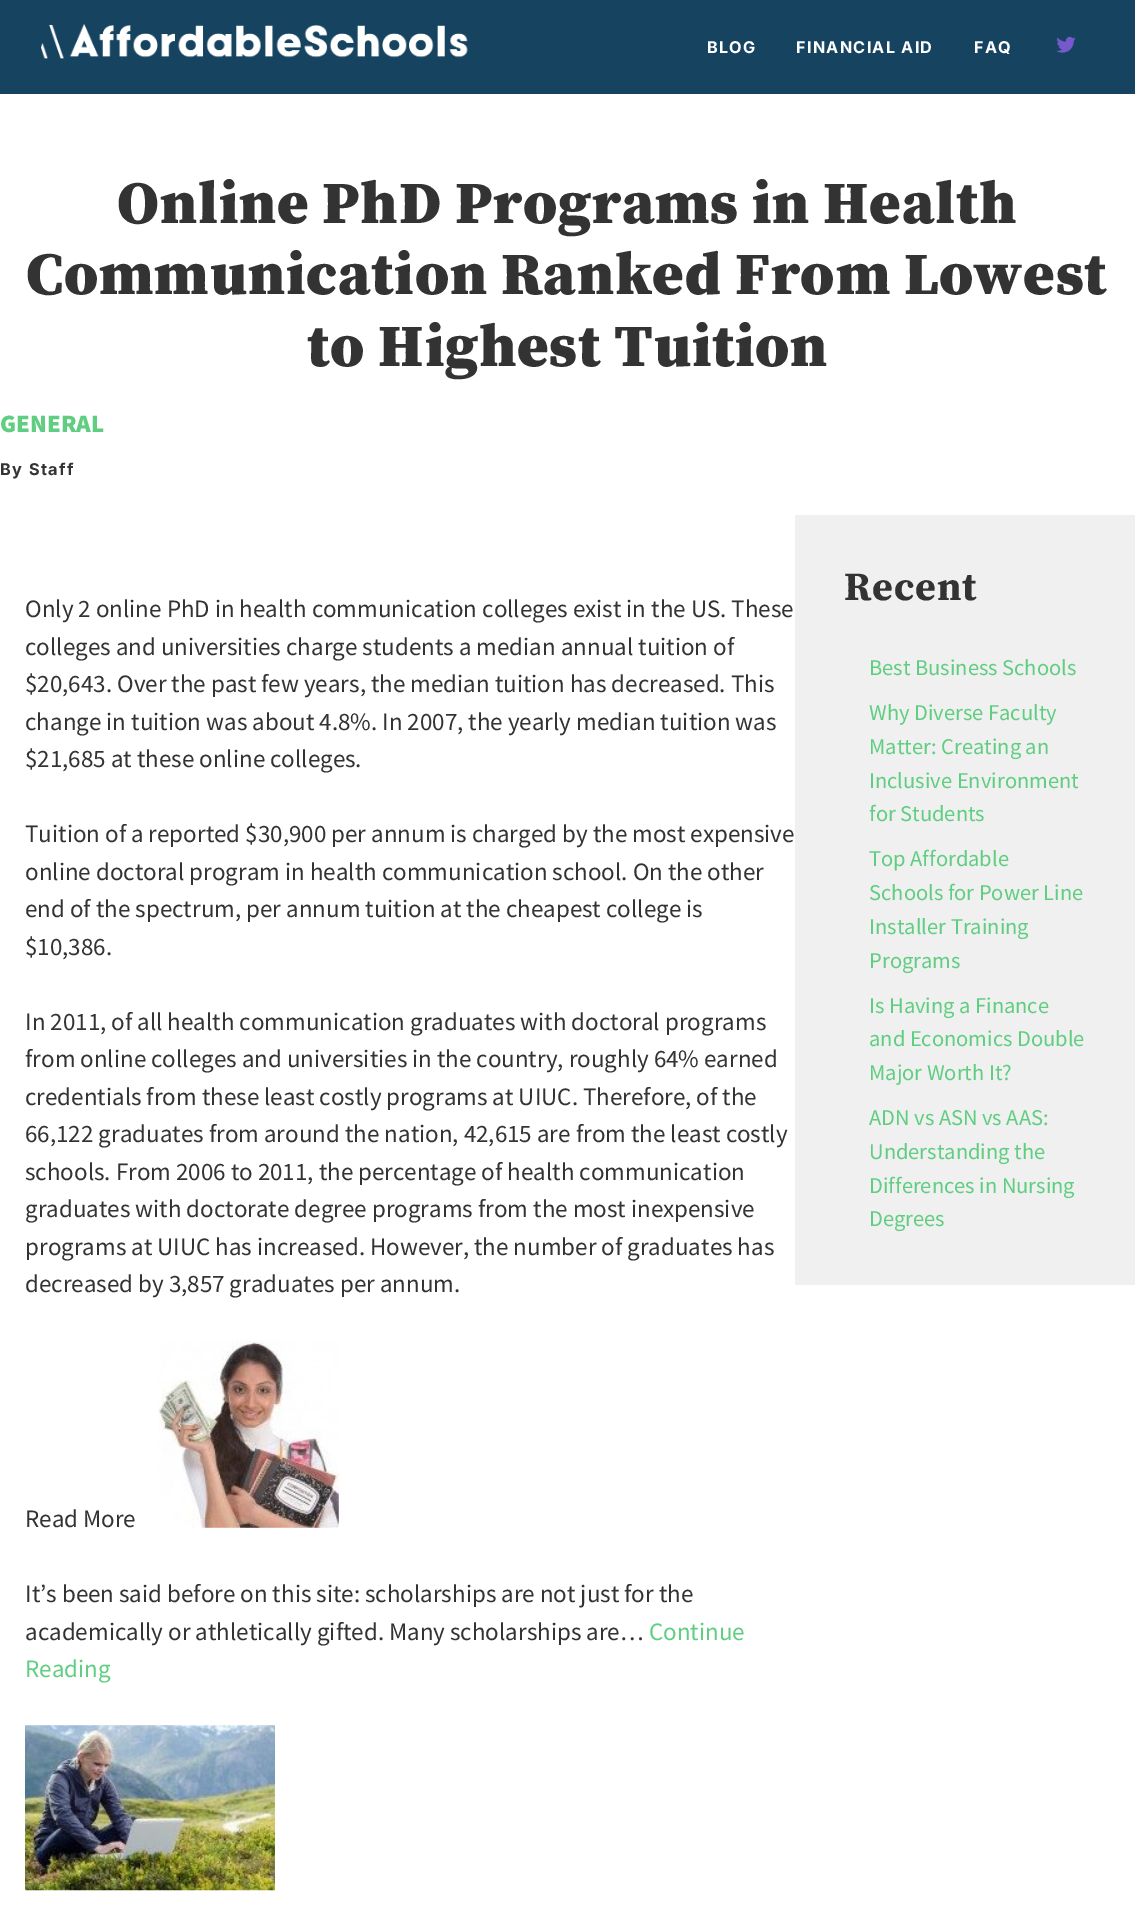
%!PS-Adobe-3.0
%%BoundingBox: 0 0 1135 1905
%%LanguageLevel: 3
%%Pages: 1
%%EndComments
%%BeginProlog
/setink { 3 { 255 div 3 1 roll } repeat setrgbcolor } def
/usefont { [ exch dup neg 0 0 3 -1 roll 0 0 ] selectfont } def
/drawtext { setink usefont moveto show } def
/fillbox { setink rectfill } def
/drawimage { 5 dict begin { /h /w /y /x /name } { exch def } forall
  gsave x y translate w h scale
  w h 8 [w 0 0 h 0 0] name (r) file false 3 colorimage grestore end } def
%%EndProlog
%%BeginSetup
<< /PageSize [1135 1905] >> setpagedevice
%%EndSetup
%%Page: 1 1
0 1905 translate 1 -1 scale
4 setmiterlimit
0 0 1135 1905 255 255 255 fillbox
0 0 1135 94 21 67 96 fillbox
(assets/img1.rgb) 41 24 427 35 drawimage
/Inter-Bold 16.25 usefont
255 255 255 setink
707 53 moveto 1.25 0 (BLOG) ashow
796 53 moveto 1.25 0 (FINANCIAL AID) ashow
974 53 moveto 1.25 0 (FAQ) ashow
(assets/img2.rgb) 1056 36 20 17 drawimage
/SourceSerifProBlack-Black 60 usefont
51 51 51 setink
117 223 moveto 0.8 0 (Online PhD Programs in Health) ashow
26 294 moveto 0.8 0 (Communication Ranked From Lowest) ashow
307 366 moveto 0.8 0 (to Highest Tuition) ashow
(GENERAL) 0 432 /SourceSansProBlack-Black 25 96 206 128 drawtext
/Inter-Bold 16.25 usefont
51 51 51 setink
0 475 moveto 1.5 0 (By Staff) ashow
(Only 2 online PhD in health communication colleges exist in the US. These) 25 617 /SourceSansPro-Regular 25 51 51 51 drawtext
(colleges and universities charge students a median annual tuition of) 25 655 /SourceSansPro-Regular 25 51 51 51 drawtext
($20,643. Over the past few years, the median tuition has decreased. This) 25 692 /SourceSansPro-Regular 25 51 51 51 drawtext
(change in tuition was about 4.8%. In 2007, the yearly median tuition was) 25 730 /SourceSansPro-Regular 25 51 51 51 drawtext
($21,685 at these online colleges.) 25 767 /SourceSansPro-Regular 25 51 51 51 drawtext
(Tuition of a reported $30,900 per annum is charged by the most expensive) 25 842 /SourceSansPro-Regular 25 51 51 51 drawtext
(online doctoral program in health communication school. On the other) 25 880 /SourceSansPro-Regular 25 51 51 51 drawtext
(end of the spectrum, per annum tuition at the cheapest college is) 25 917 /SourceSansPro-Regular 25 51 51 51 drawtext
($10,386.) 25 955 /SourceSansPro-Regular 25 51 51 51 drawtext
(In 2011, of all health communication graduates with doctoral programs) 25 1030 /SourceSansPro-Regular 25 51 51 51 drawtext
(from online colleges and universities in the country, roughly 64% earned) 25 1067 /SourceSansPro-Regular 25 51 51 51 drawtext
(credentials from these least costly programs at UIUC. Therefore, of the) 25 1105 /SourceSansPro-Regular 25 51 51 51 drawtext
(66,122 graduates from around the nation, 42,615 are from the least costly) 25 1142 /SourceSansPro-Regular 25 51 51 51 drawtext
(schools. From 2006 to 2011, the percentage of health communication) 25 1180 /SourceSansPro-Regular 25 51 51 51 drawtext
(graduates with doctorate degree programs from the most inexpensive) 25 1217 /SourceSansPro-Regular 25 51 51 51 drawtext
(programs at UIUC has increased. However, the number of graduates has) 25 1255 /SourceSansPro-Regular 25 51 51 51 drawtext
(decreased by 3,857 graduates per annum.) 25 1292 /SourceSansPro-Regular 25 51 51 51 drawtext
(Read More) 25 1527 /SourceSansPro-Regular 25 51 51 51 drawtext
(assets/img3.rgb) 158 1340 181 188 drawimage
(It’s been said before on this site: scholarships are not just for the) 25 1602 /SourceSansPro-Regular 25 51 51 51 drawtext
(academically or athletically gifted. Many scholarships are…) 25 1640 /SourceSansPro-Regular 25 51 51 51 drawtext
(Continue) 649 1640 /SourceSansPro-Regular 25 96 206 128 drawtext
(Reading) 25 1677 /SourceSansPro-Regular 25 96 206 128 drawtext
(assets/img4.rgb) 25 1725 250 166 drawimage
795 515 340 770 240 240 240 fillbox
/SourceSerifPro-Bold 40 usefont
51 51 51 setink
844 600 moveto 0.8 0 (Recent) ashow
(Best Business Schools) 869 675 /SourceSansPro-Regular 22.5 96 206 128 drawtext
(Why Diverse Faculty) 869 720 /SourceSansPro-Regular 22.5 96 206 128 drawtext
(Matter: Creating an) 869 754 /SourceSansPro-Regular 22.5 96 206 128 drawtext
(Inclusive Environment) 869 788 /SourceSansPro-Regular 22.5 96 206 128 drawtext
(for Students) 869 821 /SourceSansPro-Regular 22.5 96 206 128 drawtext
(Top Affordable) 869 866 /SourceSansPro-Regular 22.5 96 206 128 drawtext
(Schools for Power Line) 869 900 /SourceSansPro-Regular 22.5 96 206 128 drawtext
(Installer Training) 869 934 /SourceSansPro-Regular 22.5 96 206 128 drawtext
(Programs) 869 968 /SourceSansPro-Regular 22.5 96 206 128 drawtext
(Is Having a Finance) 869 1013 /SourceSansPro-Regular 22.5 96 206 128 drawtext
(and Economics Double) 869 1046 /SourceSansPro-Regular 22.5 96 206 128 drawtext
(Major Worth It?) 869 1080 /SourceSansPro-Regular 22.5 96 206 128 drawtext
(ADN vs ASN vs AAS:) 869 1125 /SourceSansPro-Regular 22.5 96 206 128 drawtext
(Understanding the) 869 1159 /SourceSansPro-Regular 22.5 96 206 128 drawtext
(Differences in Nursing) 869 1193 /SourceSansPro-Regular 22.5 96 206 128 drawtext
(Degrees) 869 1226 /SourceSansPro-Regular 22.5 96 206 128 drawtext
showpage
%%EOF
